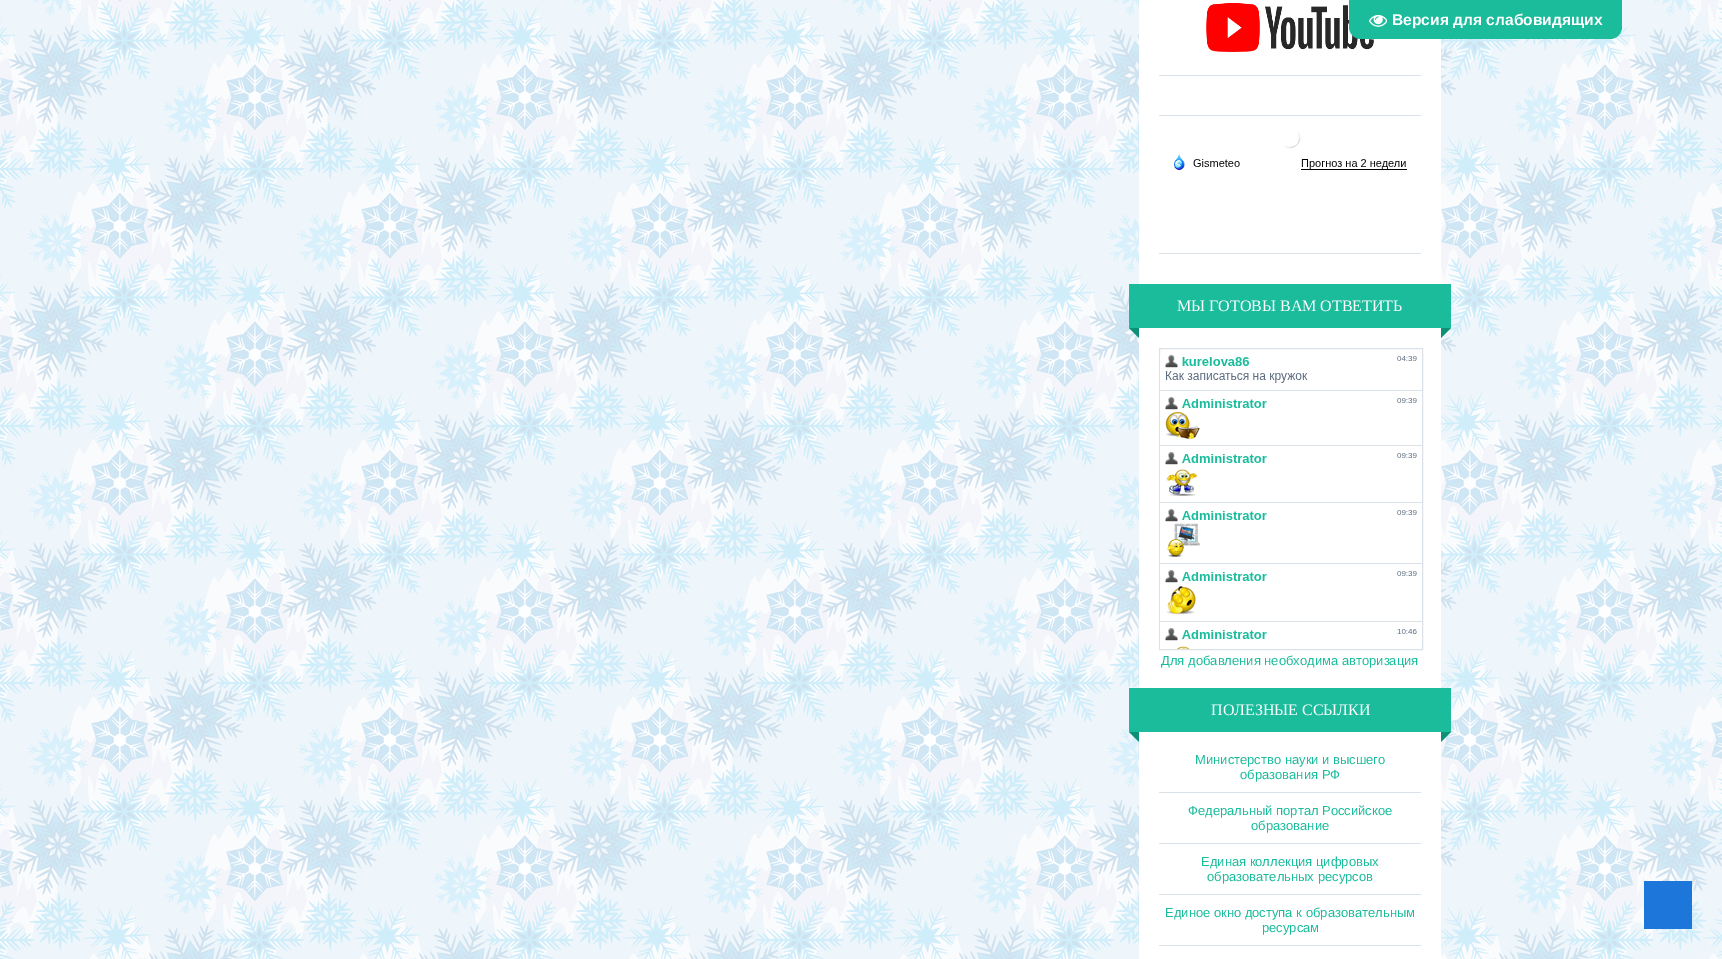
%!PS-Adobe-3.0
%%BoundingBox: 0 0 1722 959
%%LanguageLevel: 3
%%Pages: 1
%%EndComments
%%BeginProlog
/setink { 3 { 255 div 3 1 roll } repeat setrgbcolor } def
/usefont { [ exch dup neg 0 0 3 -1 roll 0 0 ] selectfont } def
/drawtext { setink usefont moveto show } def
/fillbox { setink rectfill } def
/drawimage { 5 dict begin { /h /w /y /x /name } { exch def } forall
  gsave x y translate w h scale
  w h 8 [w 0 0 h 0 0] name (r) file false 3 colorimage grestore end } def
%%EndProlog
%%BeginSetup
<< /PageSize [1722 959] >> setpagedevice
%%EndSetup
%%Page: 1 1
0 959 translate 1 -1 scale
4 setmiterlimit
0 0 1722 959 255 255 255 fillbox
(assets/img1.rgb) 0 0 1722 959 drawimage
1139 0 302 959 255 255 255 fillbox
(assets/img3.rgb) 1206 3 168 49 drawimage
26 188 156 setink
1349 0 moveto 1622 0 lineto 1622 27 lineto 1622 33.5 1616.5 39 1610 39 curveto 1361 39 lineto 1354.5 39 1349 33.5 1349 27 curveto closepath fill
(assets/img2.rgb) 1369 14 18 13 drawimage
(Версия для слабовидящих) 1392 25 /LiberationSans-Bold 15.6 255 255 255 drawtext
1159 75 262 1 219 225 232 fillbox
1159 115 262 1 219 225 232 fillbox
(assets/img4.rgb) 1284 132 17 17 drawimage
(assets/img5.rgb) 1174 154 11 16 drawimage
(assets/img6.rgb) 1193 159 47 8 drawimage
(assets/img7.rgb) 1301 159 105 10 drawimage
1301 169 106 1 0 0 0 fillbox
1159 253 262 1 219 225 232 fillbox
1129 284 322 44 26 188 156 fillbox
(МЫ ГОТОВЫ ВАМ ОТВЕТИТЬ) 1177 311 /LiberationSerif-Regular 16 255 255 255 drawtext
12 144 118 setink
1129 328 moveto 1139 328 lineto 1139 338 lineto closepath fill
1441 328 moveto 1451 328 lineto 1441 338 lineto closepath fill
219 225 232 setink
1159.5 348.5 263 301 rectstroke
(assets/img8.rgb) 1160 355 262 294 drawimage
(Для добавления необходима авторизация) 1161 665 /LiberationSans-Regular 13 26 188 156 drawtext
1129 688 322 44 26 188 156 fillbox
(ПОЛЕЗНЫЕ ССЫЛКИ) 1211 715 /LiberationSerif-Regular 16 255 255 255 drawtext
12 144 118 setink
1129 732 moveto 1139 732 lineto 1139 742 lineto closepath fill
1441 732 moveto 1451 732 lineto 1441 742 lineto closepath fill
(Министерство науки и высшего) 1195 764 /LiberationSans-Regular 13 26 188 156 drawtext
(образования РФ) 1240 779 /LiberationSans-Regular 13 26 188 156 drawtext
1159 792 262 1 219 225 232 fillbox
(Федеральный портал Российское) 1188 815 /LiberationSans-Regular 13 26 188 156 drawtext
(образование) 1251 830 /LiberationSans-Regular 13 26 188 156 drawtext
1159 843 262 1 219 225 232 fillbox
(Единая коллекция цифровых) 1201 866 /LiberationSans-Regular 13 26 188 156 drawtext
(образовательных ресурсов) 1207 881 /LiberationSans-Regular 13 26 188 156 drawtext
1159 894 262 1 219 225 232 fillbox
(Единое окно доступа к образовательным) 1165 917 /LiberationSans-Regular 13 26 188 156 drawtext
(ресурсам) 1262 932 /LiberationSans-Regular 13 26 188 156 drawtext
1159 945 262 1 219 225 232 fillbox
1644 881 48 48 29 118 217 fillbox
showpage
%%EOF
